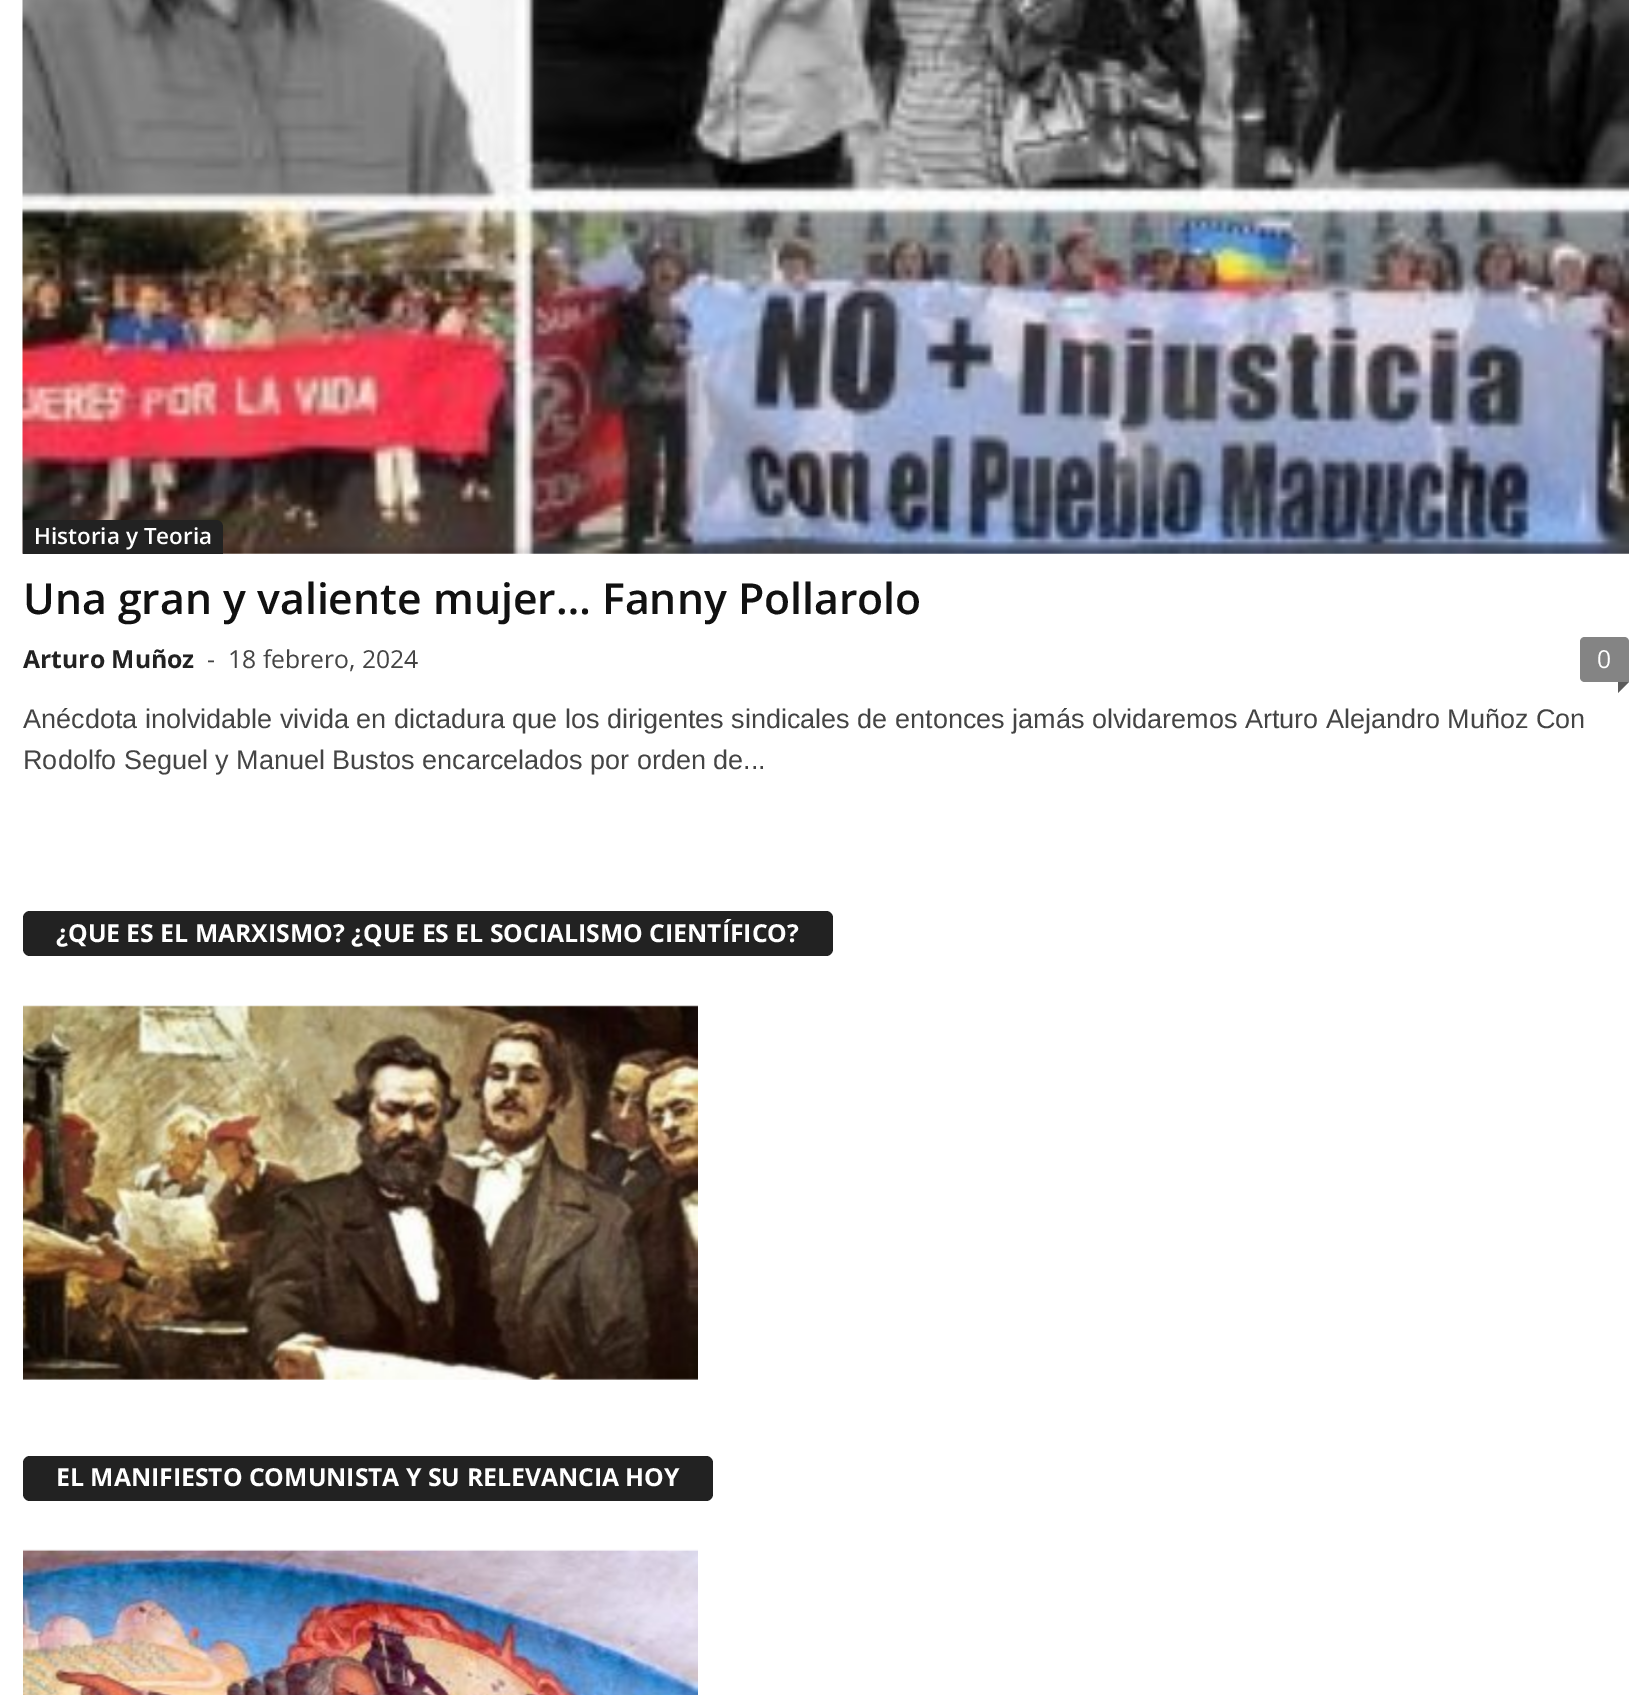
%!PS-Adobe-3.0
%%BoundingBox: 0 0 1650 1695
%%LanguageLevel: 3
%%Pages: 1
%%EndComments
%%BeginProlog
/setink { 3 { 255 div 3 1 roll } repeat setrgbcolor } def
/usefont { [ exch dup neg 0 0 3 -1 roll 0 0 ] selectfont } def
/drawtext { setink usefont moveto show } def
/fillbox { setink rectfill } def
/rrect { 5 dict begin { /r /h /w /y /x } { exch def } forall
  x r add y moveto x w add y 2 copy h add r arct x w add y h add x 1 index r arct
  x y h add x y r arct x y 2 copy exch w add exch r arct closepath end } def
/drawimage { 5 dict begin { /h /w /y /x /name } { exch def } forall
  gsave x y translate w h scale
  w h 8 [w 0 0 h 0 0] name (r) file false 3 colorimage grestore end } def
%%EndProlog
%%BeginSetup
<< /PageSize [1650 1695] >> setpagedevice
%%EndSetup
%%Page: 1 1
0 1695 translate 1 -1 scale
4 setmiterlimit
0 0 1650 1695 255 255 255 fillbox
(assets/img1.rgb) 22 0 1607 554 drawimage
34 34 34 setink
23 520 moveto 216 520 lineto 220 520 223 523 223 527 curveto 223 554 lineto 23 554 lineto closepath fill
(Historia y Teoria) 34 544 /OpenSans-SemiBold 22.5 255 255 255 drawtext
(Una gran y valiente mujer… Fanny Pollarolo) 23 614 /OpenSans-SemiBold 42.75 17 17 17 drawtext
(Arturo Muñoz) 23 668 /OpenSans-Bold 24.75 34 34 34 drawtext
(-) 207 668 /OpenSans-Regular 24.75 68 68 68 drawtext
(18 febrero, 2024) 228 668 /OpenSans-Regular 24.75 68 68 68 drawtext
132 132 132 setink
1585 637 moveto 1624 637 lineto 1627 637 1629 639 1629 642 curveto 1629 682 lineto 1585 682 lineto 1582 682 1580 680 1580 677 curveto 1580 642 lineto 1580 639 1582 637 1585 637 curveto closepath fill
(0) 1597 668 /OpenSans-Regular 24.75 255 255 255 drawtext
91 91 91 setink
1618 682 moveto 1629 682 lineto 1618 693 lineto closepath fill
(Anécdota inolvidable vivida en dictadura que los dirigentes sindicales de entonces jamás olvidaremos Arturo Alejandro Muñoz Con) 23 728 /LiberationSans-Regular 27 68 68 68 drawtext
(Rodolfo Seguel y Manuel Bustos encarcelados por orden de...) 23 769 /LiberationSans-Regular 27 68 68 68 drawtext
34 34 34 setink
23 911 810 45 7 rrect fill
(¿QUE ES EL MARXISMO? ¿QUE ES EL SOCIALISMO CIENTÍFICO?) 56 942 /OpenSans-Bold 24.75 255 255 255 drawtext
(assets/img2.rgb) 23 1005 675 375 drawimage
34 34 34 setink
23 1456 690 45 7 rrect fill
(EL MANIFIESTO COMUNISTA Y SU RELEVANCIA HOY) 56 1486 /OpenSans-Bold 24.75 255 255 255 drawtext
(assets/img3.rgb) 23 1549 675 146 drawimage
showpage
%%EOF
